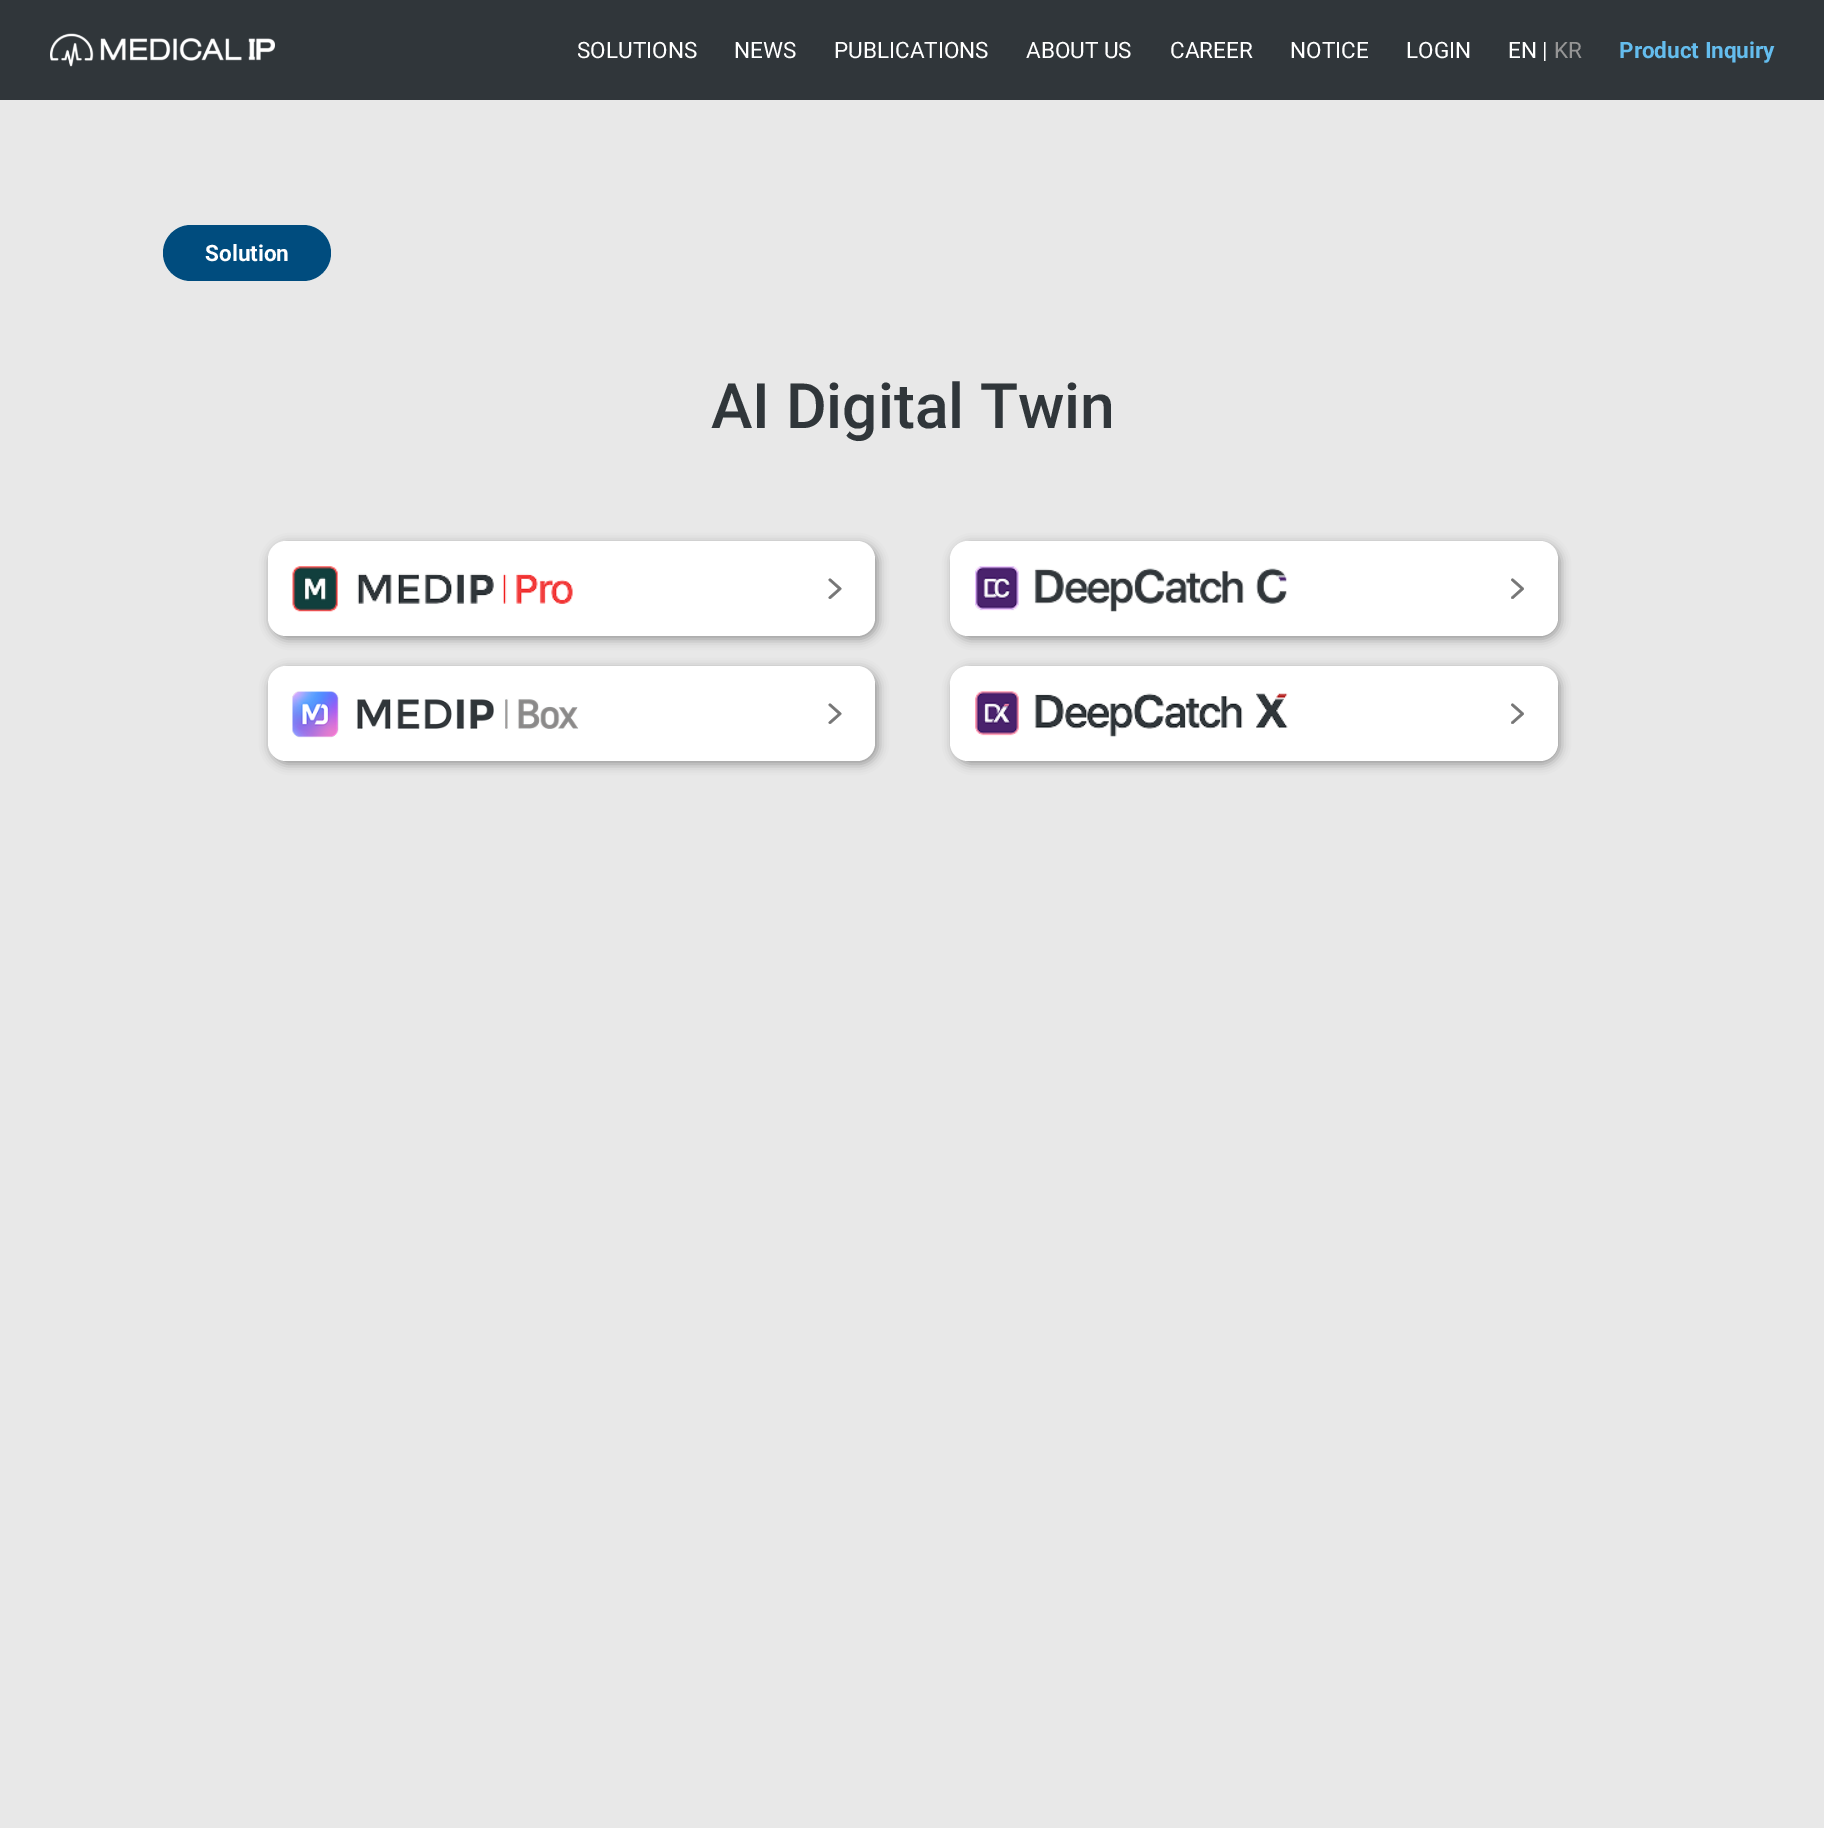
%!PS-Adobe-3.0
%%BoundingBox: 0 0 1824 1828
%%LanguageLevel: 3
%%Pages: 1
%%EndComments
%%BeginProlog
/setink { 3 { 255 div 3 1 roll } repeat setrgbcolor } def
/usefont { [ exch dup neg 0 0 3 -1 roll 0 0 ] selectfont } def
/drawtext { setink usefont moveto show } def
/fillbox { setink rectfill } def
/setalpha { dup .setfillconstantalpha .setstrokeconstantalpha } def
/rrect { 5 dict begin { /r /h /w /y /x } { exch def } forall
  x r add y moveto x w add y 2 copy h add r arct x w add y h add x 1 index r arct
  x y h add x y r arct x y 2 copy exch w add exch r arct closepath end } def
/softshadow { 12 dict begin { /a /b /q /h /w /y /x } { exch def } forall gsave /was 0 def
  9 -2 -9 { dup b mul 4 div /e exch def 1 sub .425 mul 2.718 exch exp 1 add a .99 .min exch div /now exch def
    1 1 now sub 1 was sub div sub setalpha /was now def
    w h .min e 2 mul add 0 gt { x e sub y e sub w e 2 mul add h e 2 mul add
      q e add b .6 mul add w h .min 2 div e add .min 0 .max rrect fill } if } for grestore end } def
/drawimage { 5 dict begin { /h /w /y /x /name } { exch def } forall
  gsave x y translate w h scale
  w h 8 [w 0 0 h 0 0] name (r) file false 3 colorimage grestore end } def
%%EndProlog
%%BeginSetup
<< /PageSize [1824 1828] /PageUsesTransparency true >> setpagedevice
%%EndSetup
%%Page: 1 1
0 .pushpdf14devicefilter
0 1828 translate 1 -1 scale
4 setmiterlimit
0 0 1824 1828 232 232 232 fillbox
0 0 1824 100 48 54 58 fillbox
(assets/img1.rgb) 50 33 225 34 drawimage
(SOLUTIONS) 577 58 /Roboto-Regular 22.5 255 255 255 drawtext
(NEWS) 734 58 /Roboto-Regular 22.5 255 255 255 drawtext
(PUBLICATIONS) 834 58 /Roboto-Regular 22.5 255 255 255 drawtext
(ABOUT US) 1026 58 /Roboto-Regular 22.5 255 255 255 drawtext
(CAREER) 1170 58 /Roboto-Regular 22.5 255 255 255 drawtext
(NOTICE) 1290 58 /Roboto-Regular 22.5 255 255 255 drawtext
(LOGIN) 1406 58 /Roboto-Regular 22.5 255 255 255 drawtext
(EN |) 1508 58 /Roboto-Regular 22.5 255 255 255 drawtext
(KR) 1554 58 /Roboto-Regular 22.5 149 149 149 drawtext
(Product Inquiry) 1619 58 /Roboto-Bold 22.5 100 189 238 drawtext
0 76 126 setink
163 225 168 56 28 rrect fill
(Solution) 205 261 /Roboto-Bold 22.5 255 255 255 drawtext
(AI Digital Twin) 711 428 /Roboto-Medium 62.5 48 54 58 drawtext
0 0 0 setink
270 544 608 95 18 5 0.35 softshadow
255 255 255 setink
268 541 607 95 18 rrect fill
(assets/img2.rgb) 292 566 281 46 drawimage
(assets/img3.rgb) 828 578 14 21 drawimage
0 0 0 setink
270 669 608 95 18 5 0.35 softshadow
255 255 255 setink
268 666 607 95 18 rrect fill
(assets/img4.rgb) 292 691 287 47 drawimage
(assets/img3.rgb) 828 703 14 21 drawimage
0 0 0 setink
953 544 607 95 18 5 0.35 softshadow
255 255 255 setink
950 541 608 95 18 rrect fill
(assets/img5.rgb) 975 566 312 46 drawimage
(assets/img6.rgb) 1511 578 13 21 drawimage
0 0 0 setink
953 669 607 95 18 5 0.35 softshadow
255 255 255 setink
950 666 608 95 18 rrect fill
(assets/img7.rgb) 975 691 313 46 drawimage
(assets/img6.rgb) 1511 703 13 21 drawimage
.poppdf14devicefilter showpage
%%EOF
